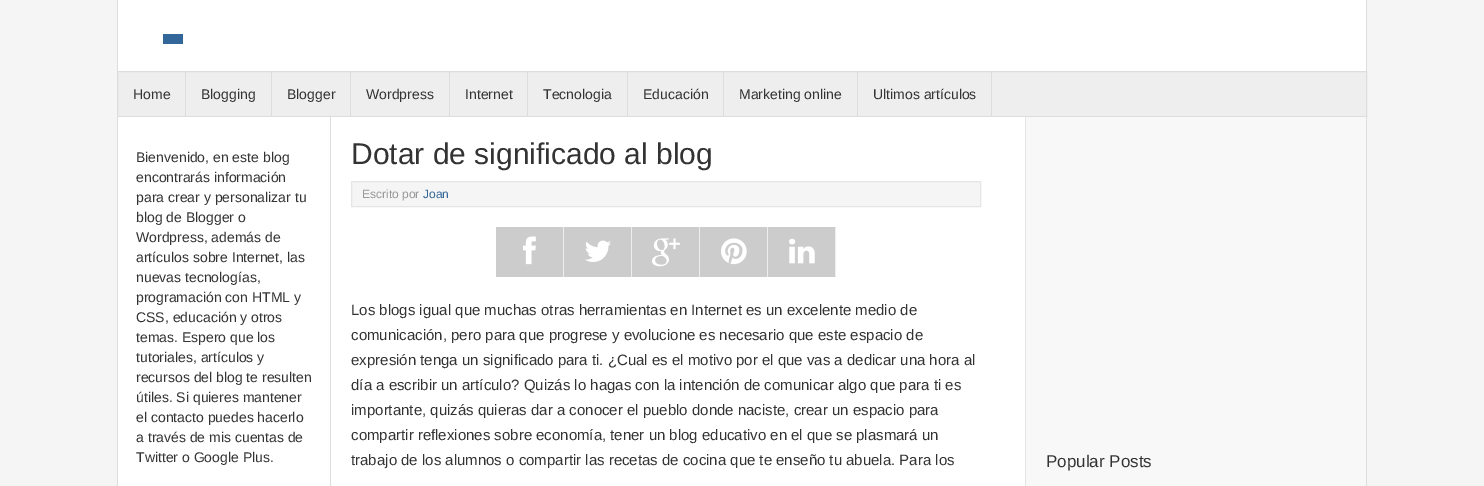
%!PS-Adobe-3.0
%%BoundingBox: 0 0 1484 486
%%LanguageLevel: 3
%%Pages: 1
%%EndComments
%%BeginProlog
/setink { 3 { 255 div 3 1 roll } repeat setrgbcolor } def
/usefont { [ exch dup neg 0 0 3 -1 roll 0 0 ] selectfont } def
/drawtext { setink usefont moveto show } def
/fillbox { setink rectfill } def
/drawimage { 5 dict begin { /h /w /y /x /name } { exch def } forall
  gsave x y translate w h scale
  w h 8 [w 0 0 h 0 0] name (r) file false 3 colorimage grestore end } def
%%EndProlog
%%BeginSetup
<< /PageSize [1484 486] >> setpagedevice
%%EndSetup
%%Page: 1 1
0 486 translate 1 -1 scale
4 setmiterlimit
0 0 1484 486 245 245 245 fillbox
118 0 1248 71 255 255 255 fillbox
1366 0 1 71 221 221 221 fillbox
117 0 1 71 221 221 221 fillbox
163 34 20 10 51 102 153 fillbox
238 238 238 setink
117.5 71.5 moveto 1366.5 71.5 lineto 1366.5 116.5 lineto 117.5 116.5 lineto closepath gsave fill grestore
221 221 221 setink
stroke
185 72 1 44 221 221 221 fillbox
(Home) 133 99 /LiberationSans-Regular 14 51 51 51 drawtext
271 72 1 44 221 221 221 fillbox
(Blogging) 201 99 /LiberationSans-Regular 14 51 51 51 drawtext
350 72 1 44 221 221 221 fillbox
(Blogger) 287 99 /LiberationSans-Regular 14 51 51 51 drawtext
449 72 1 44 221 221 221 fillbox
(Wordpress) 366 99 /LiberationSans-Regular 14 51 51 51 drawtext
527 72 1 44 221 221 221 fillbox
(Internet) 465 99 /LiberationSans-Regular 14 51 51 51 drawtext
627 72 1 44 221 221 221 fillbox
(Tecnologia) 543 99 /LiberationSans-Regular 14 51 51 51 drawtext
723 72 1 44 221 221 221 fillbox
(Educación) 643 99 /LiberationSans-Regular 14 51 51 51 drawtext
857 72 1 44 221 221 221 fillbox
(Marketing online) 739 99 /LiberationSans-Regular 14 51 51 51 drawtext
991 72 1 44 221 221 221 fillbox
(Ultimos artículos) 873 99 /LiberationSans-Regular 14 51 51 51 drawtext
118 117 907 369 255 255 255 fillbox
1366 117 1 369 221 221 221 fillbox
117 117 1 369 221 221 221 fillbox
(Bienvenido, en este blog) 136 162 /LiberationSans-Regular 14 51 51 51 drawtext
(encontrarás información) 136 182 /LiberationSans-Regular 14 51 51 51 drawtext
(para crear y personalizar tu) 136 202 /LiberationSans-Regular 14 51 51 51 drawtext
(blog de Blogger o) 136 222 /LiberationSans-Regular 14 51 51 51 drawtext
(Wordpress, además de) 136 242 /LiberationSans-Regular 14 51 51 51 drawtext
(artículos sobre Internet, las) 136 262 /LiberationSans-Regular 14 51 51 51 drawtext
(nuevas tecnologías,) 136 282 /LiberationSans-Regular 14 51 51 51 drawtext
(programación con HTML y) 136 302 /LiberationSans-Regular 14 51 51 51 drawtext
(CSS, educación y otros) 136 322 /LiberationSans-Regular 14 51 51 51 drawtext
(temas. Espero que los) 136 342 /LiberationSans-Regular 14 51 51 51 drawtext
(tutoriales, artículos y) 136 362 /LiberationSans-Regular 14 51 51 51 drawtext
(recursos del blog te resulten) 136 382 /LiberationSans-Regular 14 51 51 51 drawtext
(útiles. Si quieres mantener) 136 402 /LiberationSans-Regular 14 51 51 51 drawtext
(el contacto puedes hacerlo) 136 422 /LiberationSans-Regular 14 51 51 51 drawtext
(a través de mis cuentas de) 136 442 /LiberationSans-Regular 14 51 51 51 drawtext
(Twitter o Google Plus.) 136 462 /LiberationSans-Regular 14 51 51 51 drawtext
330 117 1 369 221 221 221 fillbox
(Dotar de significado al blog) 351 164 /LiberationSans-Regular 30 51 51 51 drawtext
245 245 245 setink
351.5 181.5 moveto 980.5 181.5 lineto 980.5 206.5 lineto 351.5 206.5 lineto closepath gsave fill grestore
229 229 229 setink
stroke
(Escrito por) 362 198 /LiberationSans-Regular 12 153 153 153 drawtext
(Joan) 423 198 /LiberationSans-Regular 12 51 102 153 drawtext
496 227 67 50 204 204 204 fillbox
563 227 1 50 238 238 238 fillbox
(assets/img1.rgb) 523 236 13 29 drawimage
564 227 67 50 204 204 204 fillbox
631 227 1 50 238 238 238 fillbox
(assets/img2.rgb) 585 240 26 22 drawimage
632 227 67 50 204 204 204 fillbox
699 227 1 50 238 238 238 fillbox
(assets/img3.rgb) 652 238 28 29 drawimage
700 227 67 50 204 204 204 fillbox
767 227 1 50 238 238 238 fillbox
(assets/img4.rgb) 721 238 26 27 drawimage
768 227 67 50 204 204 204 fillbox
835 227 1 50 238 238 238 fillbox
(assets/img5.rgb) 789 238 26 26 drawimage
(Los blogs igual que muchas otras herramientas en Internet es un excelente medio de) 351 315 /LiberationSans-Regular 15 51 51 51 drawtext
(comunicación, pero para que progrese y evolucione es necesario que este espacio de) 351 340 /LiberationSans-Regular 15 51 51 51 drawtext
(expresión tenga un significado para ti. ¿Cual es el motivo por el que vas a dedicar una hora al) 351 365 /LiberationSans-Regular 15 51 51 51 drawtext
(día a escribir un artículo? Quizás lo hagas con la intención de comunicar algo que para ti es) 351 390 /LiberationSans-Regular 15 51 51 51 drawtext
(importante, quizás quieras dar a conocer el pueblo donde naciste, crear un espacio para) 351 415 /LiberationSans-Regular 15 51 51 51 drawtext
(compartir reflexiones sobre economía, tener un blog educativo en el que se plasmará un) 351 440 /LiberationSans-Regular 15 51 51 51 drawtext
(trabajo de los alumnos o compartir las recetas de cocina que te enseño tu abuela. Para los) 351 465 /LiberationSans-Regular 15 51 51 51 drawtext
1026 117 340 369 248 248 248 fillbox
1025 117 1 369 228 228 228 fillbox
(Popular Posts) 1046 467 /LiberationSans-Regular 17 51 51 51 drawtext
showpage
%%EOF
